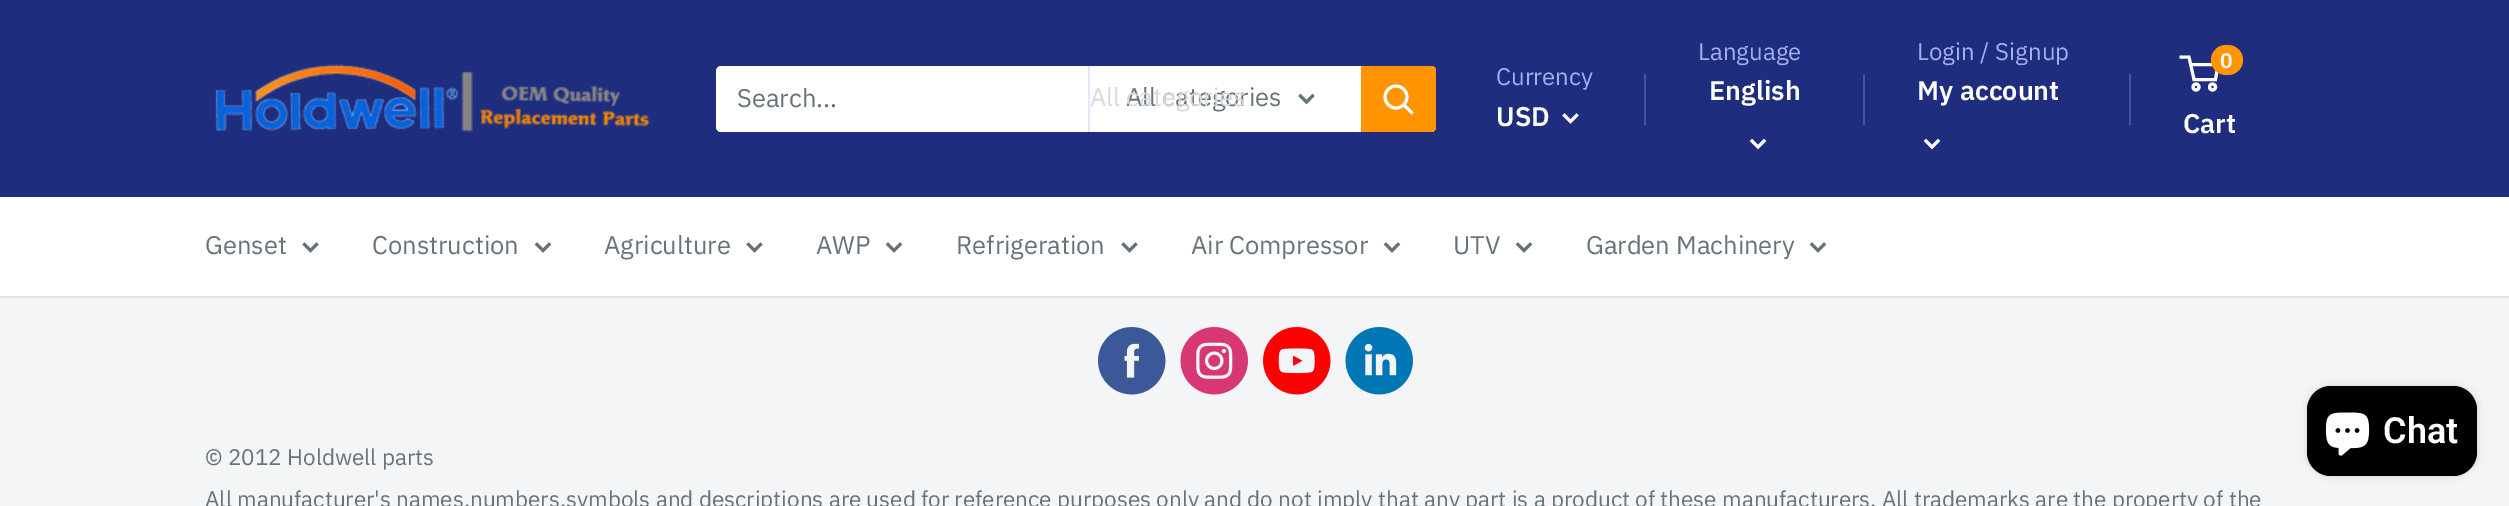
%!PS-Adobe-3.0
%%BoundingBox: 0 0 2509 506
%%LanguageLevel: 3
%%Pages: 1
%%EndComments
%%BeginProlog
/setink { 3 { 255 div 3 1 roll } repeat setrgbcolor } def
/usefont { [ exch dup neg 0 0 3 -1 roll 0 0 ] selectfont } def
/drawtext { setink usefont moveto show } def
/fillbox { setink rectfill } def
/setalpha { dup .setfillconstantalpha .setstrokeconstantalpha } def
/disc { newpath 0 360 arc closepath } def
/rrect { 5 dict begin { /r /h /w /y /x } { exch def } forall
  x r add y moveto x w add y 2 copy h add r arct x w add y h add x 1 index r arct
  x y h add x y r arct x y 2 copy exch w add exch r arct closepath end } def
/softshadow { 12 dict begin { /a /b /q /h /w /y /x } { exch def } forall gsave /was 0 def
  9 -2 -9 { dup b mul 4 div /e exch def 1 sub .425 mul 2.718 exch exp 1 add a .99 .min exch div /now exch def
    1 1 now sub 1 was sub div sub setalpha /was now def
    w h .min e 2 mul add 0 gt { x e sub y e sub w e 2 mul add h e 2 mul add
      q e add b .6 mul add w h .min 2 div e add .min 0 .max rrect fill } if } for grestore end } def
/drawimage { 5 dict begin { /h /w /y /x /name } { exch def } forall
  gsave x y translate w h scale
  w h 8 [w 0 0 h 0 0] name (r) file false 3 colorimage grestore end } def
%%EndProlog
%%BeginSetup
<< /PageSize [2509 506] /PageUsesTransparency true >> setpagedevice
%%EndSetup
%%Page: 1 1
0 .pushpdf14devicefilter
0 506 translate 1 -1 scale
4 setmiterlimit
0 0 2509 506 243 245 246 fillbox
0 0 2509 197 30 45 125 fillbox
(assets/img1.rgb) 215 64 435 68 drawimage
255 255 255 setink
716 66 720 66 5 rrect fill
(Search...) 737 107 /IBMPlexSans-Regular 25.5 103 114 121 drawtext
1088 66 2 66 227 231 250 fillbox
(All categories) 1126 106 /IBMPlexSans-Regular 25.5 103 114 121 drawtext
(All categories) 1090 106 /IBMPlexSans-Regular 25.5 214 217 219 drawtext
103 114 121 setink
3 setlinewidth
2 setlinecap
1312.5 96 moveto 1306.5 102 lineto 1300.5 96 lineto stroke
255 148 0 setink
1361 66 moveto 1431 66 lineto 1434 66 1436 68 1436 71 curveto 1436 127 lineto 1436 130 1434 132 1431 132 curveto 1361 132 lineto closepath fill
255 255 255 setink
1411.5 112.5 moveto 1404 105 lineto stroke
0 setlinecap
1396 97 11 disc stroke
(Currency) 1496 85 /IBMPlexSans-Regular 24 163 175 239 drawtext
1644 74 2 51 70 84 159 fillbox
(USD) 1496 126 /IBMPlexSans-SemiBold 27 255 255 255 drawtext
2 setlinecap
1576.5 115.5 moveto 1570.5 121.5 lineto 1564.5 115.5 lineto stroke
(Language) 1698 60 /IBMPlexSans-Regular 24 163 175 239 drawtext
(English) 1709 100 /IBMPlexSans-SemiBold 27 255 255 255 drawtext
1764 141 moveto 1758 147 lineto 1752 141 lineto stroke
1863 74 2 51 70 84 159 fillbox
(Login / Signup) 1917 60 /IBMPlexSans-Regular 24 163 175 239 drawtext
(My account) 1917 100 /IBMPlexSans-SemiBold 27 255 255 255 drawtext
1938 141 moveto 1932 147 lineto 1926 141 lineto stroke
2129 74 2 51 70 84 159 fillbox
255 255 255 setink
0 setlinecap
2196 87 3 disc stroke
2212.5 87 3 disc stroke
2190.5 64.5 moveto 2218 64.5 lineto 2215.5 79.5 lineto 2194 79.5 lineto 2189 57 lineto 2179.5 57 lineto stroke
255 148 0 setink
2211 45 32 30 15 rrect fill
(0) 2220 68 /IBMPlexSans-SemiBold 21 255 255 255 drawtext
(Cart) 2183 133 /IBMPlexSans-SemiBold 27 255 255 255 drawtext
0 197 2509 99 255 255 255 fillbox
0 296 2509 2 225 227 228 fillbox
(Genset) 205 254 /IBMPlexSans-Regular 25.5 103 114 121 drawtext
2 setlinecap
316.5 244.5 moveto 310.5 250.5 lineto 304.5 244.5 lineto stroke
(Construction) 372 254 /IBMPlexSans-Regular 25.5 103 114 121 drawtext
549 244.5 moveto 543 250.5 lineto 537 244.5 lineto stroke
(Agriculture) 604 254 /IBMPlexSans-Regular 25.5 103 114 121 drawtext
760.5 244.5 moveto 754.5 250.5 lineto 748.5 244.5 lineto stroke
(AWP) 816 254 /IBMPlexSans-Regular 25.5 103 114 121 drawtext
900 244.5 moveto 894 250.5 lineto 888 244.5 lineto stroke
(Refrigeration) 956 254 /IBMPlexSans-Regular 25.5 103 114 121 drawtext
1135.5 244.5 moveto 1129.5 250.5 lineto 1123.5 244.5 lineto stroke
(Air Compressor) 1191 254 /IBMPlexSans-Regular 25.5 103 114 121 drawtext
1398 244.5 moveto 1392 250.5 lineto 1386 244.5 lineto stroke
(UTV) 1453 254 /IBMPlexSans-Regular 25.5 103 114 121 drawtext
1530 244.5 moveto 1524 250.5 lineto 1518 244.5 lineto stroke
(Garden Machinery) 1586 254 /IBMPlexSans-Regular 25.5 103 114 121 drawtext
1824 244.5 moveto 1818 250.5 lineto 1812 244.5 lineto stroke
0 0 0 setink
2307 386 170 90 24 4 0.15 softshadow
2307 386 170 90 24 rrect fill
(assets/img2.rgb) 2325 412 45 44 drawimage
(Chat) 2383 443 /Roboto-SemiBold 36 255 255 255 drawtext
(assets/img3.rgb) 1098 327 68 68 drawimage
(assets/img4.rgb) 1180 327 68 68 drawimage
(assets/img5.rgb) 1263 327 68 68 drawimage
(assets/img6.rgb) 1345 327 68 68 drawimage
(© 2012 Holdwell parts) 205 465 /IBMPlexSans-Regular 22.5 103 114 121 drawtext
(All manufacturer's names,numbers,symbols and descriptions are used for reference purposes only and do not imply that any part is a product of these manufacturers. All trademarks are the property of the) 205 507 /IBMPlexSans-Regular 22.5 103 114 121 drawtext
.poppdf14devicefilter showpage
%%EOF
